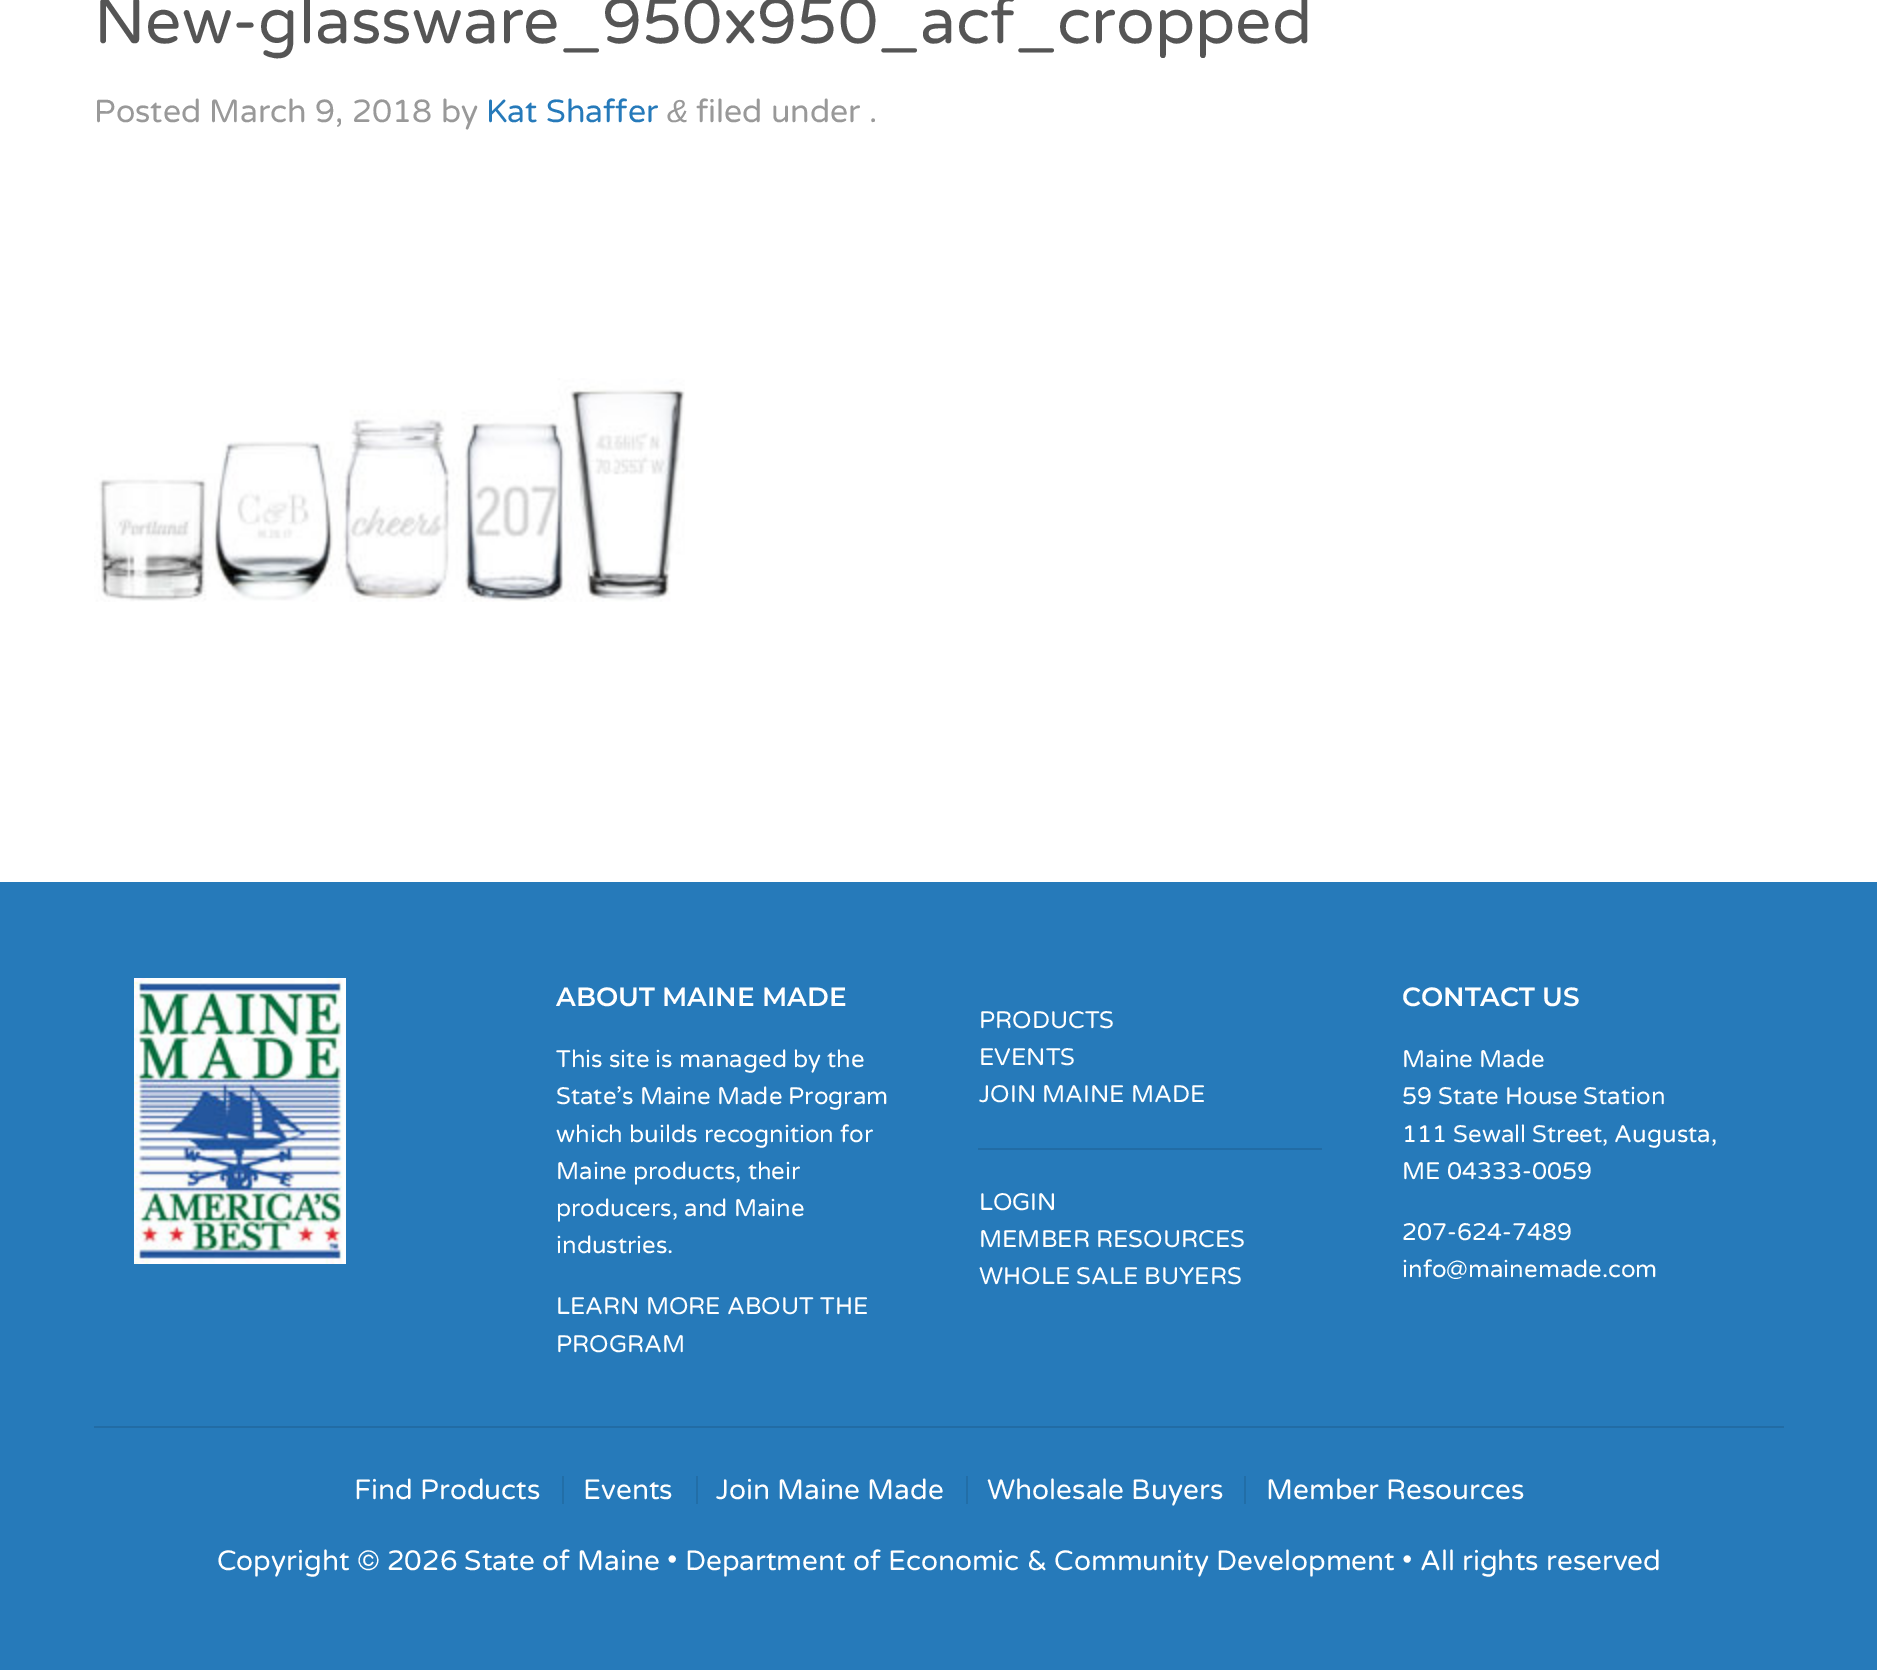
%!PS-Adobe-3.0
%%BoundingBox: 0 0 1877 1670
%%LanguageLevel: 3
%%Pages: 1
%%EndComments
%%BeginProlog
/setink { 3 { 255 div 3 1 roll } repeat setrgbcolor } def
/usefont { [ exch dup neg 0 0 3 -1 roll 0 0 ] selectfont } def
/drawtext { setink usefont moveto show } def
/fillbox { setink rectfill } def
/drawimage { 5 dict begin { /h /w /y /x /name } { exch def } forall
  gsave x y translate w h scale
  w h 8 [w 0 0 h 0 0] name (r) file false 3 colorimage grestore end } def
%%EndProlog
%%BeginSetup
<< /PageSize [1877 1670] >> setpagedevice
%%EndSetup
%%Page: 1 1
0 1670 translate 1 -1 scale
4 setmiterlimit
0 0 1877 1670 255 255 255 fillbox
(New-glassware_950x950_acf_cropped) 94 43 /VarelaRound-Regular 64 85 85 85 drawtext
(Posted March 9, 2018 by) 94 122 /VarelaRound-Regular 32 153 153 153 drawtext
(Kat Shaffer) 486 122 /VarelaRound-Regular 32 38 122 186 drawtext
(&) 667 122 /LiberationSans-Italic 32 153 153 153 drawtext
(filed under .) 696 122 /VarelaRound-Regular 32 153 153 153 drawtext
(assets/img1.rgb) 94 378 591 224 drawimage
0 882 1877 788 38 122 186 fillbox
94 1426 1690 2 34 108 165 fillbox
(assets/img2.rgb) 134 978 212 286 drawimage
(ABOUT MAINE MADE) 556 1006 /Montserrat-SemiBold 26.4 255 255 255 drawtext
(This site is managed by the) 556 1067 /VarelaRound-Regular 24 255 255 255 drawtext
(State’s Maine Made Program) 556 1104 /VarelaRound-Regular 24 255 255 255 drawtext
(which builds recognition for) 556 1142 /VarelaRound-Regular 24 255 255 255 drawtext
(Maine products, their) 556 1179 /VarelaRound-Regular 24 255 255 255 drawtext
(producers, and Maine) 556 1216 /VarelaRound-Regular 24 255 255 255 drawtext
(industries.) 556 1253 /VarelaRound-Regular 24 255 255 255 drawtext
(LEARN MORE ABOUT THE) 556 1314 /VarelaRound-Regular 24 255 255 255 drawtext
(PROGRAM) 556 1352 /VarelaRound-Regular 24 255 255 255 drawtext
(PRODUCTS) 979 1028 /VarelaRound-Regular 24 255 255 255 drawtext
(EVENTS) 979 1065 /VarelaRound-Regular 24 255 255 255 drawtext
(JOIN MAINE MADE) 979 1102 /VarelaRound-Regular 24 255 255 255 drawtext
978 1148 344 2 34 108 165 fillbox
(LOGIN) 979 1210 /VarelaRound-Regular 24 255 255 255 drawtext
(MEMBER RESOURCES) 979 1247 /VarelaRound-Regular 24 255 255 255 drawtext
(WHOLE SALE BUYERS) 979 1284 /VarelaRound-Regular 24 255 255 255 drawtext
(CONTACT US) 1402 1006 /Montserrat-SemiBold 26.4 255 255 255 drawtext
(Maine Made) 1402 1067 /VarelaRound-Regular 24 255 255 255 drawtext
(59 State House Station) 1402 1104 /VarelaRound-Regular 24 255 255 255 drawtext
(111 Sewall Street, Augusta,) 1402 1142 /VarelaRound-Regular 24 255 255 255 drawtext
(ME 04333-0059) 1402 1179 /VarelaRound-Regular 24 255 255 255 drawtext
(207-624-7489) 1402 1240 /VarelaRound-Regular 24 255 255 255 drawtext
(info@mainemade.com) 1402 1277 /VarelaRound-Regular 24 255 255 255 drawtext
(Find Products) 354 1499 /VarelaRound-Regular 28 255 255 255 drawtext
562 1476 2 28 34 110 167 fillbox
(Events) 583 1499 /VarelaRound-Regular 28 255 255 255 drawtext
696 1476 2 28 34 110 167 fillbox
(Join Maine Made) 716 1499 /VarelaRound-Regular 28 255 255 255 drawtext
966 1476 2 28 34 110 167 fillbox
(Wholesale Buyers) 987 1499 /VarelaRound-Regular 28 255 255 255 drawtext
1244 1476 2 28 34 110 167 fillbox
(Member Resources) 1266 1499 /VarelaRound-Regular 28 255 255 255 drawtext
(Copyright © 2026 State of Maine • Department of Economic & Community Development • All rights reserved) 217 1570 /VarelaRound-Regular 28 255 255 255 drawtext
showpage
%%EOF
